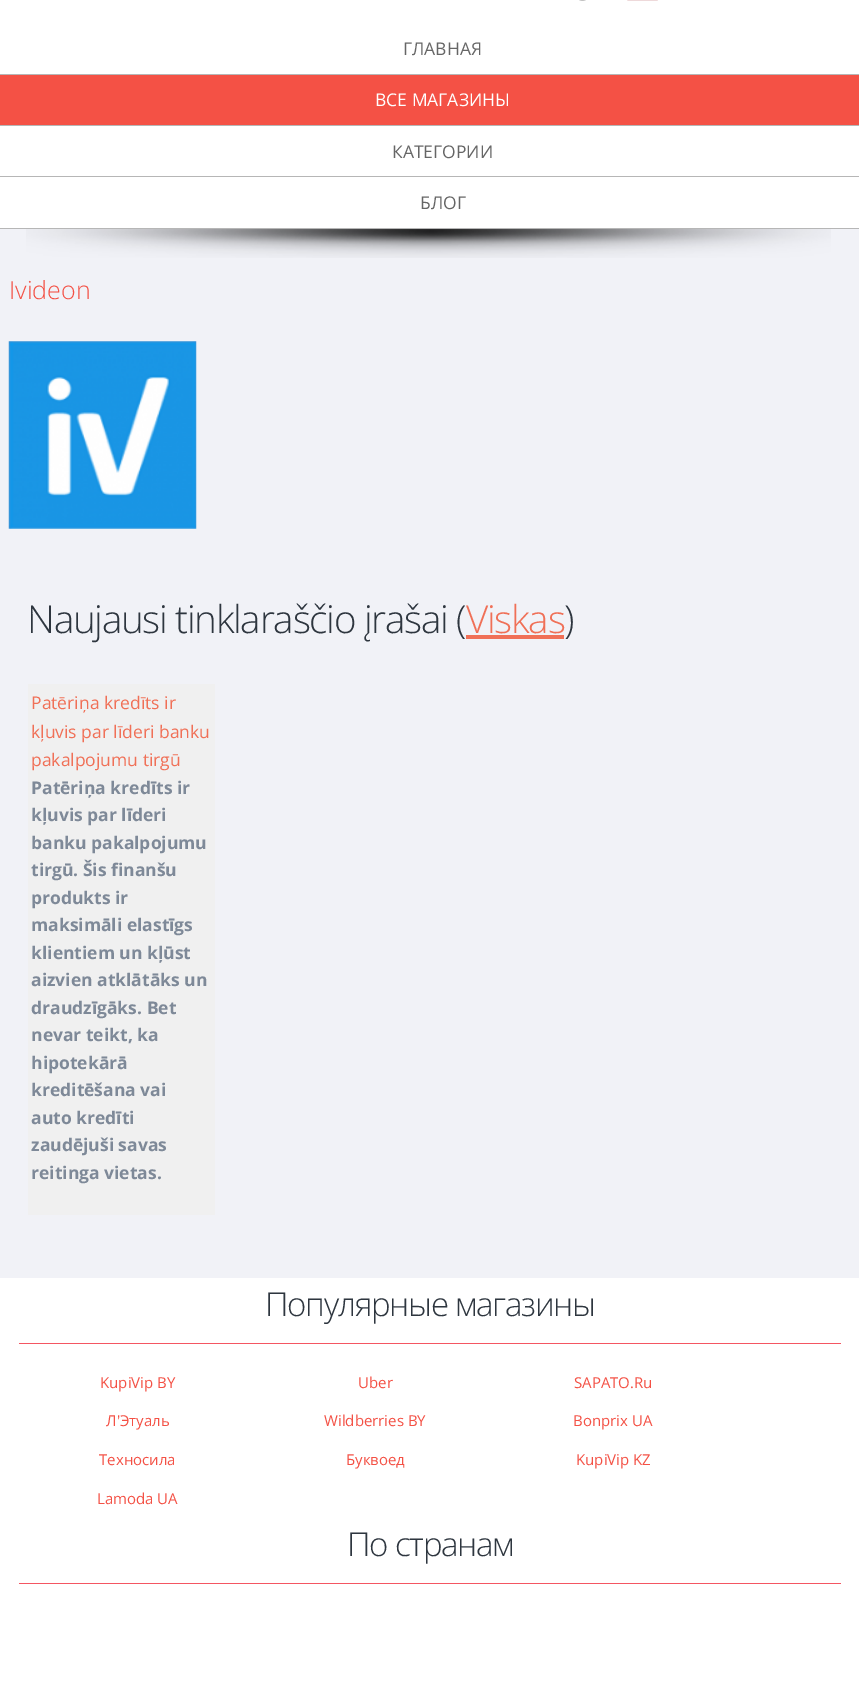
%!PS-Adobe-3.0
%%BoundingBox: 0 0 859 1698
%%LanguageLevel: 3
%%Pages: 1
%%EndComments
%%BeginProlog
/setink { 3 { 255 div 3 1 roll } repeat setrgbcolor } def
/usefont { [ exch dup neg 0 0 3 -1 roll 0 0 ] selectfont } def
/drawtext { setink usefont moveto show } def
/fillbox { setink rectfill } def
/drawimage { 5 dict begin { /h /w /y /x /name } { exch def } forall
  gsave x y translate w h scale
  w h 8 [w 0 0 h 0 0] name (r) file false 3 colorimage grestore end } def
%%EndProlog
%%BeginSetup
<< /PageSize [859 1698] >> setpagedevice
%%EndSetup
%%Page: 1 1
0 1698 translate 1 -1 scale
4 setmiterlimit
0 0 859 1698 241 242 247 fillbox
0 0 859 228 255 255 255 fillbox
(assets/img1.rgb) 579 0 7 1 drawimage
(assets/img2.rgb) 627 0 31 1 drawimage
0 74 859 1 182 182 182 fillbox
(ГЛАВНАЯ) 403 55 /OpenSans-Regular 17.5 102 102 102 drawtext
0 75 859 50 244 81 69 fillbox
0 125 859 1 182 182 182 fillbox
(ВСЕ МАГАЗИНЫ) 375 106 /OpenSans-Regular 17.5 255 255 255 drawtext
0 176 859 1 182 182 182 fillbox
(КАТЕГОРИИ) 392 158 /OpenSans-Regular 17.5 102 102 102 drawtext
0 228 859 1 182 182 182 fillbox
(БЛОГ) 420 209 /OpenSans-Regular 17.5 102 102 102 drawtext
(assets/img3.rgb) 26 229 805 29 drawimage
(Ivideon) 9 299 /OpenSans-Light 25 244 81 69 drawtext
(assets/img4.rgb) 8 341 189 188 drawimage
/OpenSans-Light 38.5 usefont
46 54 63 setink
27 633 moveto -1.25 0 (Naujausi tinklaraščio įrašai \() ashow
240 112 87 setink
466 633 moveto -1.25 0 (Viskas) ashow
466 635 98 4 240 112 87 fillbox
46 54 63 setink
564 633 moveto -1.25 0 (\)) ashow
28 684 187 531 240 240 240 fillbox
(Patēriņa kredīts ir) 31 709 /OpenSans-Regular 17.5 240 112 87 drawtext
(kļuvis par līderi banku) 31 738 /OpenSans-Regular 17.5 240 112 87 drawtext
(pakalpojumu tirgū) 31 766 /OpenSans-Regular 17.5 240 112 87 drawtext
(Patēriņa kredīts ir) 31 794 /OpenSans-Bold 17.5 126 137 152 drawtext
(kļuvis par līderi) 31 821 /OpenSans-Bold 17.5 126 137 152 drawtext
(banku pakalpojumu) 31 849 /OpenSans-Bold 17.5 126 137 152 drawtext
(tirgū. Šis finanšu) 31 876 /OpenSans-Bold 17.5 126 137 152 drawtext
(produkts ir) 31 904 /OpenSans-Bold 17.5 126 137 152 drawtext
(maksimāli elastīgs) 31 931 /OpenSans-Bold 17.5 126 137 152 drawtext
(klientiem un kļūst) 31 959 /OpenSans-Bold 17.5 126 137 152 drawtext
(aizvien atklātāks un) 31 986 /OpenSans-Bold 17.5 126 137 152 drawtext
(draudzīgāks. Bet) 31 1014 /OpenSans-Bold 17.5 126 137 152 drawtext
(nevar teikt, ka) 31 1041 /OpenSans-Bold 17.5 126 137 152 drawtext
(hipotekārā) 31 1069 /OpenSans-Bold 17.5 126 137 152 drawtext
(kreditēšana vai) 31 1096 /OpenSans-Bold 17.5 126 137 152 drawtext
(auto kredīti) 31 1124 /OpenSans-Bold 17.5 126 137 152 drawtext
(zaudējuši savas) 31 1151 /OpenSans-Bold 17.5 126 137 152 drawtext
(reitinga vietas.) 31 1179 /OpenSans-Bold 17.5 126 137 152 drawtext
0 1278 859 420 255 255 255 fillbox
19 1343 822 1 244 86 98 fillbox
/OpenSans-Light 33 usefont
46 54 63 setink
265 1316 moveto -1.25 0 (Популярные магазины) ashow
(KupiVip BY) 100 1388 /OpenSans-Regular 15 244 81 69 drawtext
(Uber) 358 1388 /OpenSans-Regular 15 244 81 69 drawtext
(SAPATO.Ru) 574 1388 /OpenSans-Regular 15 244 81 69 drawtext
(Л'Этуаль) 106 1426 /OpenSans-Regular 15 244 81 69 drawtext
(Wildberries BY) 324 1426 /OpenSans-Regular 15 244 81 69 drawtext
(Bonprix UA) 573 1426 /OpenSans-Regular 15 244 81 69 drawtext
(Техносила) 99 1465 /OpenSans-Regular 15 244 81 69 drawtext
(Буквоед) 346 1465 /OpenSans-Regular 15 244 81 69 drawtext
(KupiVip KZ) 576 1465 /OpenSans-Regular 15 244 81 69 drawtext
(Lamoda UA) 97 1504 /OpenSans-Regular 15 244 81 69 drawtext
19 1583 822 1 244 86 98 fillbox
/OpenSans-Light 33 usefont
46 54 63 setink
347 1556 moveto -1.25 0 (По странам) ashow
showpage
%%EOF
